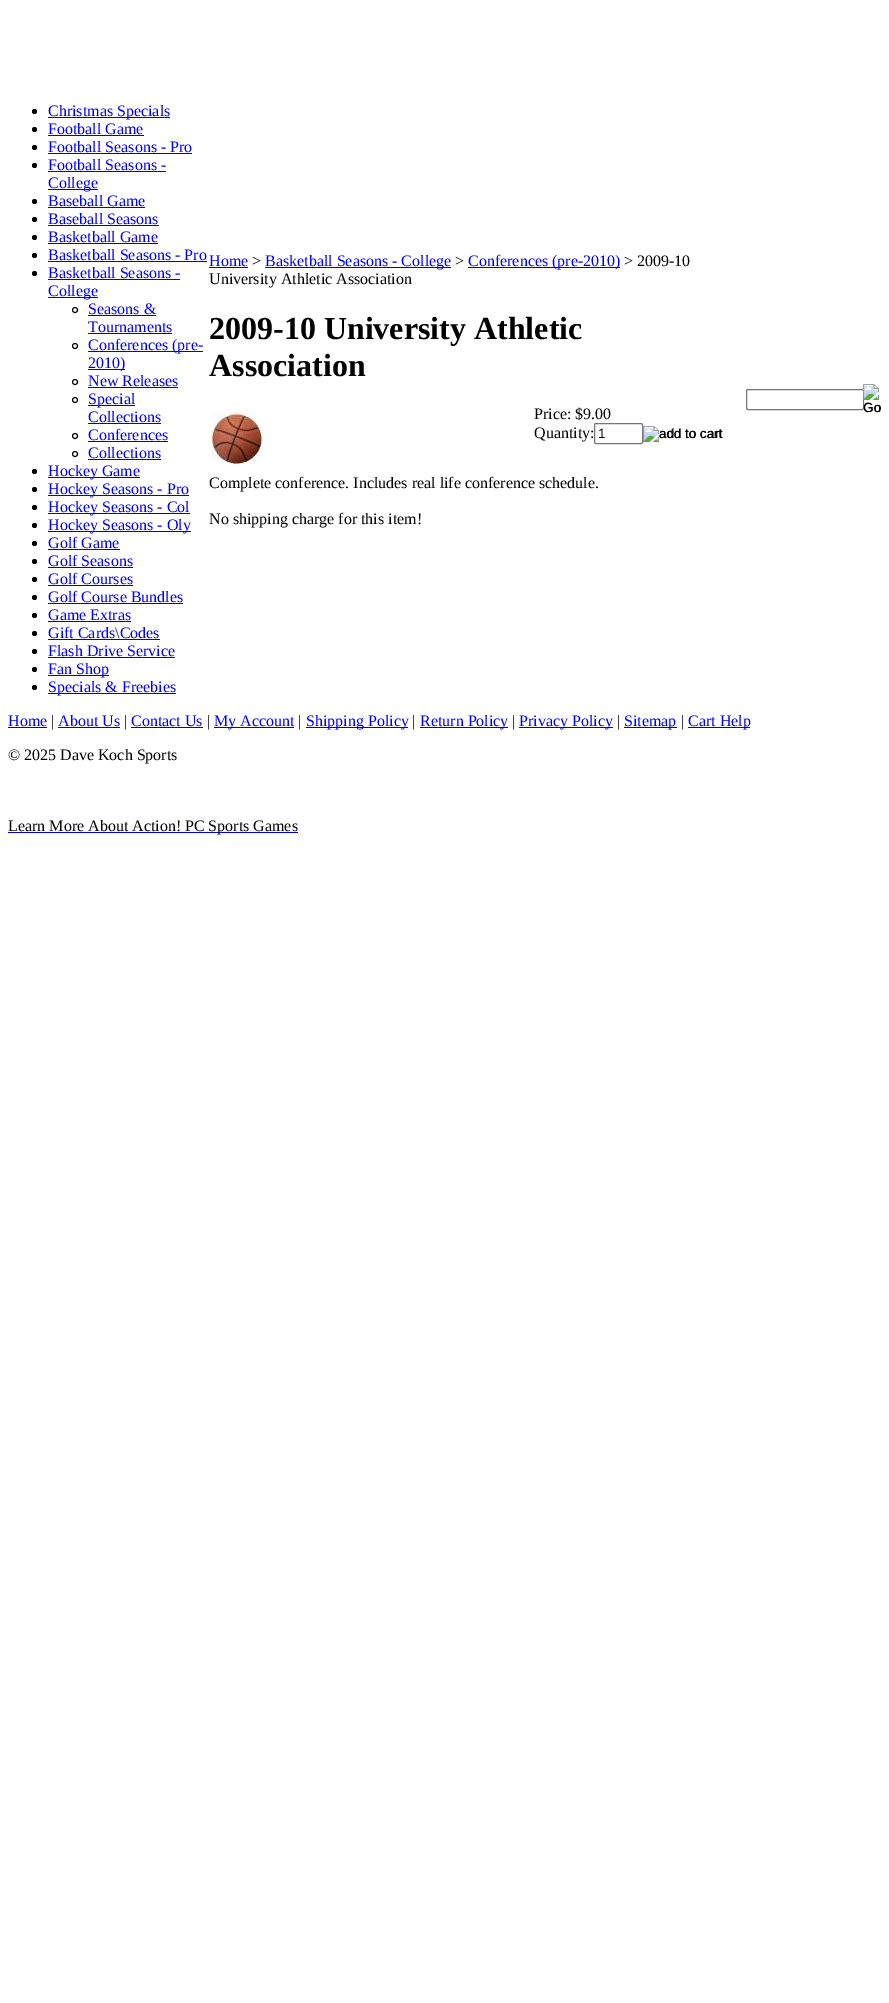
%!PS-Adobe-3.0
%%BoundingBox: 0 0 889 2003
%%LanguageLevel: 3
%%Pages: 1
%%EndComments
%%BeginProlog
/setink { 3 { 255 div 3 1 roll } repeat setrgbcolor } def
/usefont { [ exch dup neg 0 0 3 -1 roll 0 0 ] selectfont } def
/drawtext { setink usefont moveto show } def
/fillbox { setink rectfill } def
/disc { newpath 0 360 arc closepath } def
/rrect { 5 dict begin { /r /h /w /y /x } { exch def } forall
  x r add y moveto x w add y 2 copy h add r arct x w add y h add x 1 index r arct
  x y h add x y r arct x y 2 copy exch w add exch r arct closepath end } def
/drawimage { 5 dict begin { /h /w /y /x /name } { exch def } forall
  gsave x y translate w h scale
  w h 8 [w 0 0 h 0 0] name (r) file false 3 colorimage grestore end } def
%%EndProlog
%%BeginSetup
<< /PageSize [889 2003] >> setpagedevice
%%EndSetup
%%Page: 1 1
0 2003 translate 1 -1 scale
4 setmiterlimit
0 0 889 2003 255 255 255 fillbox
0 0 0 setink
34.5 111.5 2.5 disc fill
48 117 122 1 0 0 238 fillbox
(Christmas Specials) 48 116 /LiberationSerif-Regular 16 0 0 238 drawtext
0 0 0 setink
34.5 129.5 2.5 disc fill
(Football Game) 48 134 /LiberationSerif-Regular 16 0 0 238 drawtext
48 135 96 1 0 0 238 fillbox
0 0 0 setink
34.5 147.5 2.5 disc fill
(Football Seasons - Pro) 48 152 /LiberationSerif-Regular 16 0 0 238 drawtext
48 153 144 1 0 0 238 fillbox
0 0 0 setink
34.5 165.5 2.5 disc fill
(Football Seasons -) 48 170 /LiberationSerif-Regular 16 0 0 238 drawtext
48 171 118 1 0 0 238 fillbox
48 189 50 1 0 0 238 fillbox
(College) 48 188 /LiberationSerif-Regular 16 0 0 238 drawtext
0 0 0 setink
34.5 201.5 2.5 disc fill
(Baseball Game) 48 206 /LiberationSerif-Regular 16 0 0 238 drawtext
48 207 97 1 0 0 238 fillbox
0 0 0 setink
34.5 219.5 2.5 disc fill
(Baseball Seasons) 48 224 /LiberationSerif-Regular 16 0 0 238 drawtext
48 225 111 1 0 0 238 fillbox
0 0 0 setink
34.5 237.5 2.5 disc fill
(Basketball Game) 48 242 /LiberationSerif-Regular 16 0 0 238 drawtext
48 243 110 1 0 0 238 fillbox
0 0 0 setink
34.5 255.5 2.5 disc fill
(Basketball Seasons - Pro) 48 260 /LiberationSerif-Regular 16 0 0 238 drawtext
48 261 159 1 0 0 238 fillbox
0 0 0 setink
34.5 273.5 2.5 disc fill
(Basketball Seasons -) 48 278 /LiberationSerif-Regular 16 0 0 238 drawtext
48 279 132 1 0 0 238 fillbox
48 297 50 1 0 0 238 fillbox
(College) 48 296 /LiberationSerif-Regular 16 0 0 238 drawtext
0 0 0 setink
75 310 2.5 disc stroke
(Seasons &) 88 314 /LiberationSerif-Regular 16 0 0 238 drawtext
88 315 68 1 0 0 238 fillbox
(Tournaments) 88 332 /LiberationSerif-Regular 16 0 0 238 drawtext
88 333 84 1 0 0 238 fillbox
0 0 0 setink
75 346 2.5 disc stroke
88 351 115 1 0 0 238 fillbox
(Conferences \(pre-) 88 350 /LiberationSerif-Regular 16 0 0 238 drawtext
88 369 37 1 0 0 238 fillbox
(2010\)) 88 368 /LiberationSerif-Regular 16 0 0 238 drawtext
0 0 0 setink
75 382 2.5 disc stroke
(New Releases) 88 386 /LiberationSerif-Regular 16 0 0 238 drawtext
88 387 90 1 0 0 238 fillbox
0 0 0 setink
75 400 2.5 disc stroke
88 405 47 1 0 0 238 fillbox
(Special) 88 404 /LiberationSerif-Regular 16 0 0 238 drawtext
(Collections) 88 422 /LiberationSerif-Regular 16 0 0 238 drawtext
88 423 73 1 0 0 238 fillbox
0 0 0 setink
75 436 2.5 disc stroke
(Conferences) 88 440 /LiberationSerif-Regular 16 0 0 238 drawtext
88 441 80 1 0 0 238 fillbox
0 0 0 setink
75 454 2.5 disc stroke
(Collections) 88 458 /LiberationSerif-Regular 16 0 0 238 drawtext
88 459 73 1 0 0 238 fillbox
0 0 0 setink
34.5 471.5 2.5 disc fill
48 477 92 1 0 0 238 fillbox
(Hockey Game) 48 476 /LiberationSerif-Regular 16 0 0 238 drawtext
0 0 0 setink
34.5 489.5 2.5 disc fill
48 495 141 1 0 0 238 fillbox
(Hockey Seasons - Pro) 48 494 /LiberationSerif-Regular 16 0 0 238 drawtext
0 0 0 setink
34.5 507.5 2.5 disc fill
48 513 142 1 0 0 238 fillbox
(Hockey Seasons - Col) 48 512 /LiberationSerif-Regular 16 0 0 238 drawtext
0 0 0 setink
34.5 525.5 2.5 disc fill
48 531 143 1 0 0 238 fillbox
(Hockey Seasons - Oly) 48 530 /LiberationSerif-Regular 16 0 0 238 drawtext
0 0 0 setink
34.5 543.5 2.5 disc fill
(Golf Game) 48 548 /LiberationSerif-Regular 16 0 0 238 drawtext
48 549 72 1 0 0 238 fillbox
0 0 0 setink
34.5 561.5 2.5 disc fill
(Golf Seasons) 48 566 /LiberationSerif-Regular 16 0 0 238 drawtext
48 567 85 1 0 0 238 fillbox
0 0 0 setink
34.5 579.5 2.5 disc fill
(Golf Courses) 48 584 /LiberationSerif-Regular 16 0 0 238 drawtext
48 585 85 1 0 0 238 fillbox
0 0 0 setink
34.5 597.5 2.5 disc fill
(Golf Course Bundles) 48 602 /LiberationSerif-Regular 16 0 0 238 drawtext
48 603 135 1 0 0 238 fillbox
0 0 0 setink
34.5 615.5 2.5 disc fill
(Game Extras) 48 620 /LiberationSerif-Regular 16 0 0 238 drawtext
48 621 83 1 0 0 238 fillbox
0 0 0 setink
34.5 633.5 2.5 disc fill
(Gift Cards\\Codes) 48 638 /LiberationSerif-Regular 16 0 0 238 drawtext
48 639 112 1 0 0 238 fillbox
0 0 0 setink
34.5 651.5 2.5 disc fill
(Flash Drive Service) 48 656 /LiberationSerif-Regular 16 0 0 238 drawtext
48 657 127 1 0 0 238 fillbox
0 0 0 setink
34.5 669.5 2.5 disc fill
48 675 61 1 0 0 238 fillbox
(Fan Shop) 48 674 /LiberationSerif-Regular 16 0 0 238 drawtext
0 0 0 setink
34.5 687.5 2.5 disc fill
48 693 128 1 0 0 238 fillbox
(Specials & Freebies) 48 692 /LiberationSerif-Regular 16 0 0 238 drawtext
(Home) 209 266 /LiberationSerif-Regular 16 0 0 238 drawtext
209 267 39 1 0 0 238 fillbox
(>) 252 266 /LiberationSerif-Regular 16 0 0 0 drawtext
265 267 186 1 0 0 238 fillbox
(Basketball Seasons - College) 265 266 /LiberationSerif-Regular 16 0 0 238 drawtext
(>) 455 266 /LiberationSerif-Regular 16 0 0 0 drawtext
468 267 152 1 0 0 238 fillbox
(Conferences \(pre-2010\)) 468 266 /LiberationSerif-Regular 16 0 0 238 drawtext
(> 2009-10) 624 266 /LiberationSerif-Regular 16 0 0 0 drawtext
(University Athletic Association) 209 284 /LiberationSerif-Regular 16 0 0 0 drawtext
(2009-10 University Athletic) 209 339 /LiberationSerif-Bold 32 0 0 0 drawtext
(Association) 209 376 /LiberationSerif-Bold 32 0 0 0 drawtext
(assets/img1.rgb) 212 414 50 50 drawimage
(Price: $9.00) 534 419 /LiberationSerif-Regular 16 0 0 0 drawtext
(Quantity:) 534 438 /LiberationSerif-Regular 16 0 0 0 drawtext
118 118 118 setink
594.5 423.5 48 20 1.5 rrect stroke
(1) 598 438 /LiberationSans-Regular 13.5 0 0 0 drawtext
(assets/img2.rgb) 643 426 79 16 drawimage
(add to cart) 659 438 /LiberationSans-Regular 13.5 0 0 0 drawtext
(Complete conference. Includes real life conference schedule.) 209 488 /LiberationSerif-Regular 16 0 0 0 drawtext
(No shipping charge for this item!) 209 524 /LiberationSerif-Regular 16 0 0 0 drawtext
118 118 118 setink
746.5 389.5 117 20 1.5 rrect stroke
(assets/img3.rgb) 863 384 18 28 drawimage
(Go) 863 412 /LiberationSans-Regular 13.5 0 0 0 drawtext
(Home) 8 726 /LiberationSerif-Regular 16 0 0 238 drawtext
8 727 39 1 0 0 238 fillbox
(|) 51 726 /LiberationSerif-Regular 16 0 0 0 drawtext
(About Us) 58 726 /LiberationSerif-Regular 16 0 0 238 drawtext
58 727 62 1 0 0 238 fillbox
(|) 124 726 /LiberationSerif-Regular 16 0 0 0 drawtext
(Contact Us) 131 726 /LiberationSerif-Regular 16 0 0 238 drawtext
131 727 72 1 0 0 238 fillbox
(|) 207 726 /LiberationSerif-Regular 16 0 0 0 drawtext
214 727 80 1 0 0 238 fillbox
(My Account) 214 726 /LiberationSerif-Regular 16 0 0 238 drawtext
(|) 298 726 /LiberationSerif-Regular 16 0 0 0 drawtext
306 727 102 1 0 0 238 fillbox
(Shipping Policy) 306 726 /LiberationSerif-Regular 16 0 0 238 drawtext
(|) 412 726 /LiberationSerif-Regular 16 0 0 0 drawtext
420 727 88 1 0 0 238 fillbox
(Return Policy) 420 726 /LiberationSerif-Regular 16 0 0 238 drawtext
(|) 512 726 /LiberationSerif-Regular 16 0 0 0 drawtext
519 727 94 1 0 0 238 fillbox
(Privacy Policy) 519 726 /LiberationSerif-Regular 16 0 0 238 drawtext
(|) 617 726 /LiberationSerif-Regular 16 0 0 0 drawtext
624 727 53 1 0 0 238 fillbox
(Sitemap) 624 726 /LiberationSerif-Regular 16 0 0 238 drawtext
(|) 681 726 /LiberationSerif-Regular 16 0 0 0 drawtext
688 727 62 1 0 0 238 fillbox
(Cart Help) 688 726 /LiberationSerif-Regular 16 0 0 238 drawtext
(© 2025 Dave Koch Sports) 8 760 /LiberationSerif-Regular 16 0 0 0 drawtext
8 832 290 1 0 0 238 fillbox
(Learn More About Action! PC Sports Games) 8 831 /LiberationSerif-Regular 16 0 0 0 drawtext
showpage
%%EOF
